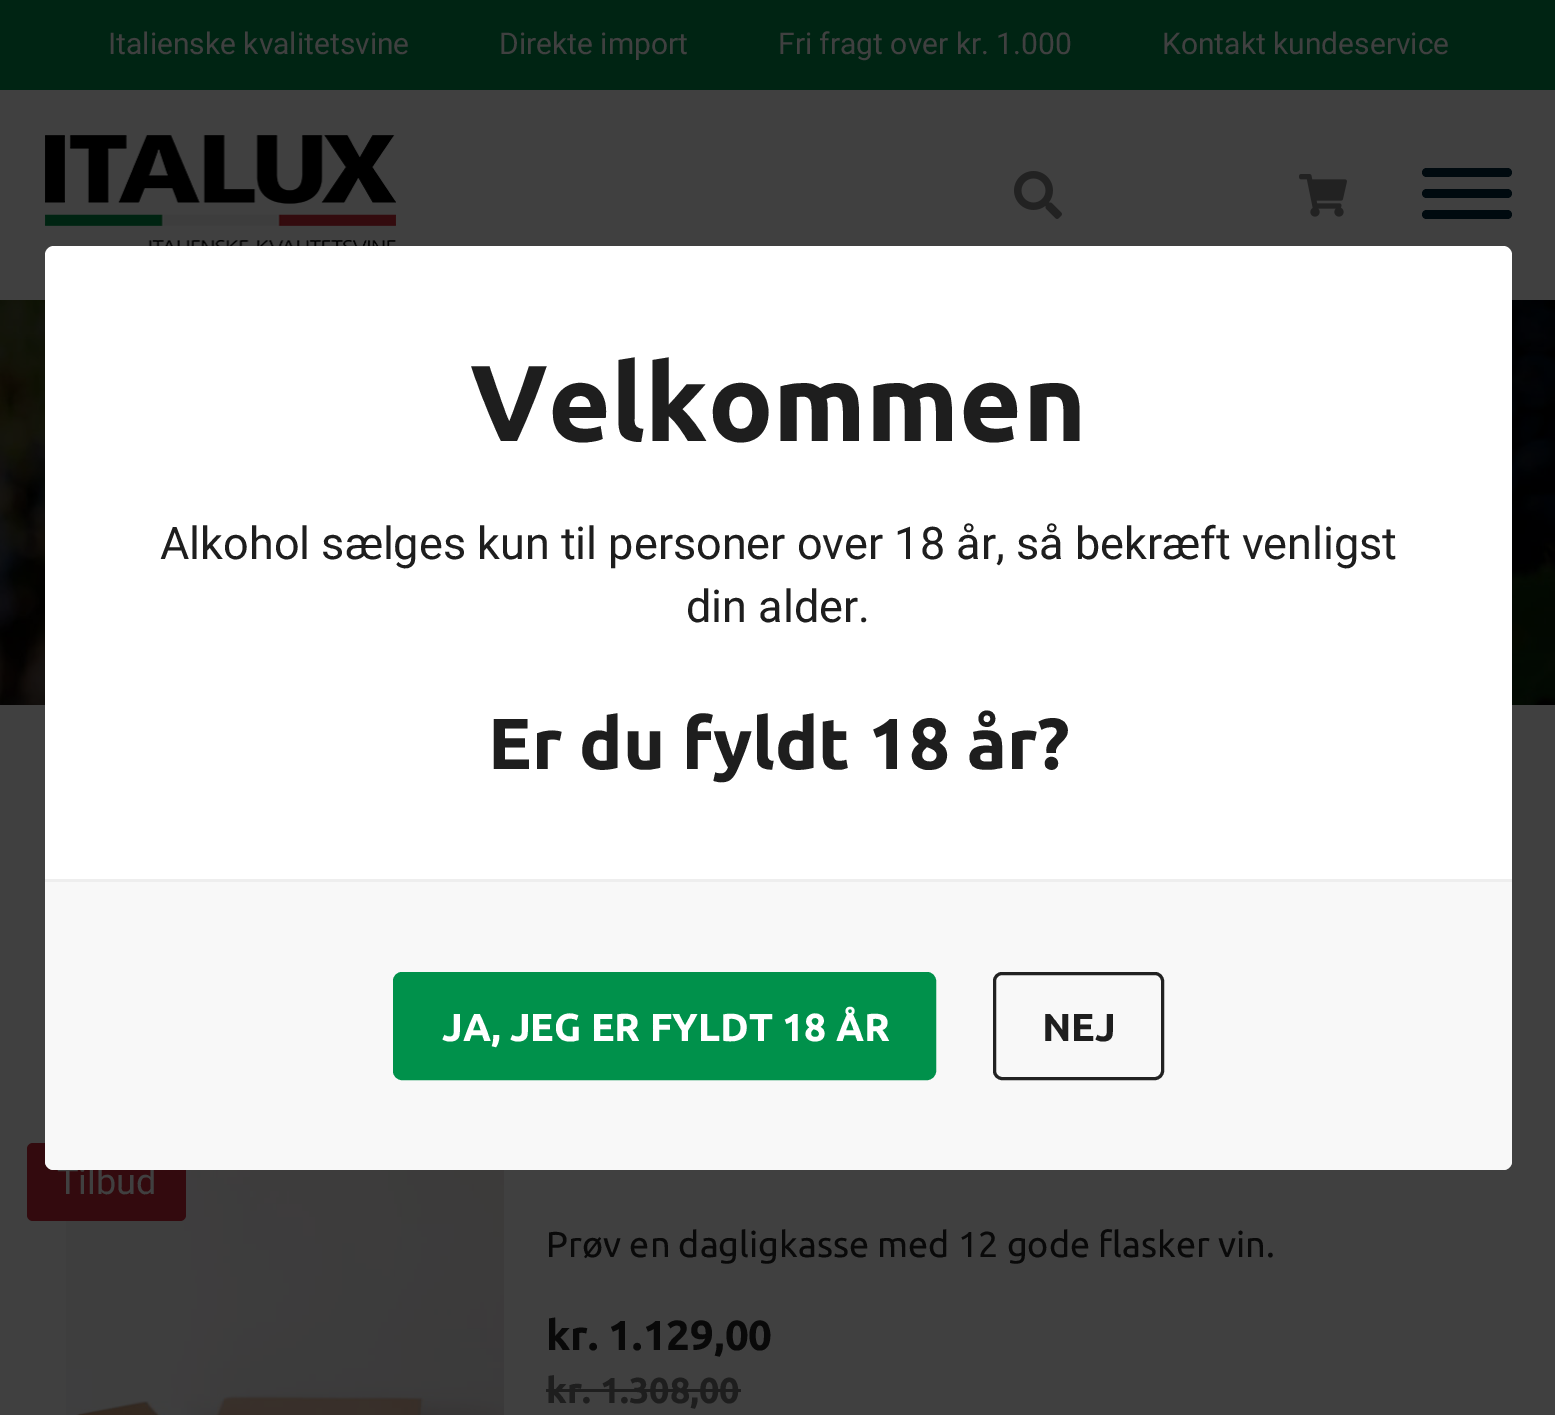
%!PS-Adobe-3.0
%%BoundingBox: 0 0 1555 1415
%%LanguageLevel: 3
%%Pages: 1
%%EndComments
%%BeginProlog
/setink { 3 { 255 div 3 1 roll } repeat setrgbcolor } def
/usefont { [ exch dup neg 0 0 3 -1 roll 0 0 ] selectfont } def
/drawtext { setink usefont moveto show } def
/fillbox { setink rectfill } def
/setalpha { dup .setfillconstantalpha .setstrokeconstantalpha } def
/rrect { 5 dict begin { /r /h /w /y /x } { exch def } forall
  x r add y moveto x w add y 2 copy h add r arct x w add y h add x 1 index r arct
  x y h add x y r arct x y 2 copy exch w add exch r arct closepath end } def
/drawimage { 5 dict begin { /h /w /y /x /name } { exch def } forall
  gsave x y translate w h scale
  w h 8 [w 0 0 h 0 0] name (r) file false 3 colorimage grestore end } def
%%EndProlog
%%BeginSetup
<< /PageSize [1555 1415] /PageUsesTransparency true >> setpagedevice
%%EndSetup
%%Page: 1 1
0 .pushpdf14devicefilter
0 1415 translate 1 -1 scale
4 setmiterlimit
0 0 1555 1415 0 36 19 fillbox
(Italienske kvalitetsvine) 108 54 /Roboto-Regular 30 64 64 64 drawtext
(Direkte import) 499 54 /Roboto-Regular 30 64 64 64 drawtext
(Fri fragt over kr. 1.000) 778 54 /Roboto-Regular 30 64 64 64 drawtext
(Kontakt kundeservice) 1162 54 /Roboto-Regular 30 64 64 64 drawtext
0 90 1555 210 64 64 64 fillbox
(assets/img1.rgb) 45 135 351 111 drawimage
(assets/img2.rgb) 1014 171 48 48 drawimage
(assets/img3.rgb) 1299 174 48 43 drawimage
0 10 15 setink
1422 168 90 9 4.5 rrect fill
1422 189 90 9 4.5 rrect fill
1422 210 90 9 4.5 rrect fill
(assets/img4.rgb) 0 300 1555 405 drawimage
0 705 1555 710 64 64 64 fillbox
(assets/img5.rgb) 66 1170 438 245 drawimage
51 10 14 setink
27 1143 159 78 6 rrect fill
(Tilbud) 57 1194 /Roboto-Regular 36 64 64 64 drawtext
(Prøv en dagligkasse med 12 gode flasker vin.) 546 1257 /Ubuntu-Regular 36 9 9 9 drawtext
(kr. 1.129,00) 546 1350 /Ubuntu-Bold 42 9 9 9 drawtext
(kr. 1.308,00) 546 1403 /Ubuntu-Bold 36 30 30 30 drawtext
546 1389 195 3 30 30 30 fillbox
255 255 255 setink
45 246 1467 924 9 rrect fill
(Velkommen) 470 441 /Ubuntu-Bold 108 30 30 30 drawtext
(Alkohol sælges kun til personer over 18 år, så bekræft venligst) 160 559 /Roboto-Regular 45 30 30 30 drawtext
(din alder.) 686 622 /Roboto-Regular 45 30 30 30 drawtext
(Er du fyldt 18 år?) 488 769 /Ubuntu-Bold 72 30 30 30 drawtext
0.75 setalpha
246 246 246 setink
45 879 moveto 1512 879 lineto 1512 1161 lineto 1512 1166 1508 1170 1503 1170 curveto 54 1170 lineto 49 1170 45 1166 45 1161 curveto closepath fill
1 setalpha
45 879 1467 3 238 238 238 fillbox
0 145 75 setink
394.5 973.5 540 105 7.5 rrect gsave fill grestore
3 setlinewidth
stroke
(JA, JEG ER FYLDT 18 ÅR) 442 1041 /Ubuntu-Bold 39 255 255 255 drawtext
34 34 34 setink
994.5 973.5 168 105 7.5 rrect stroke
(NEJ) 1042 1041 /Ubuntu-Bold 39 30 30 30 drawtext
.poppdf14devicefilter showpage
%%EOF
